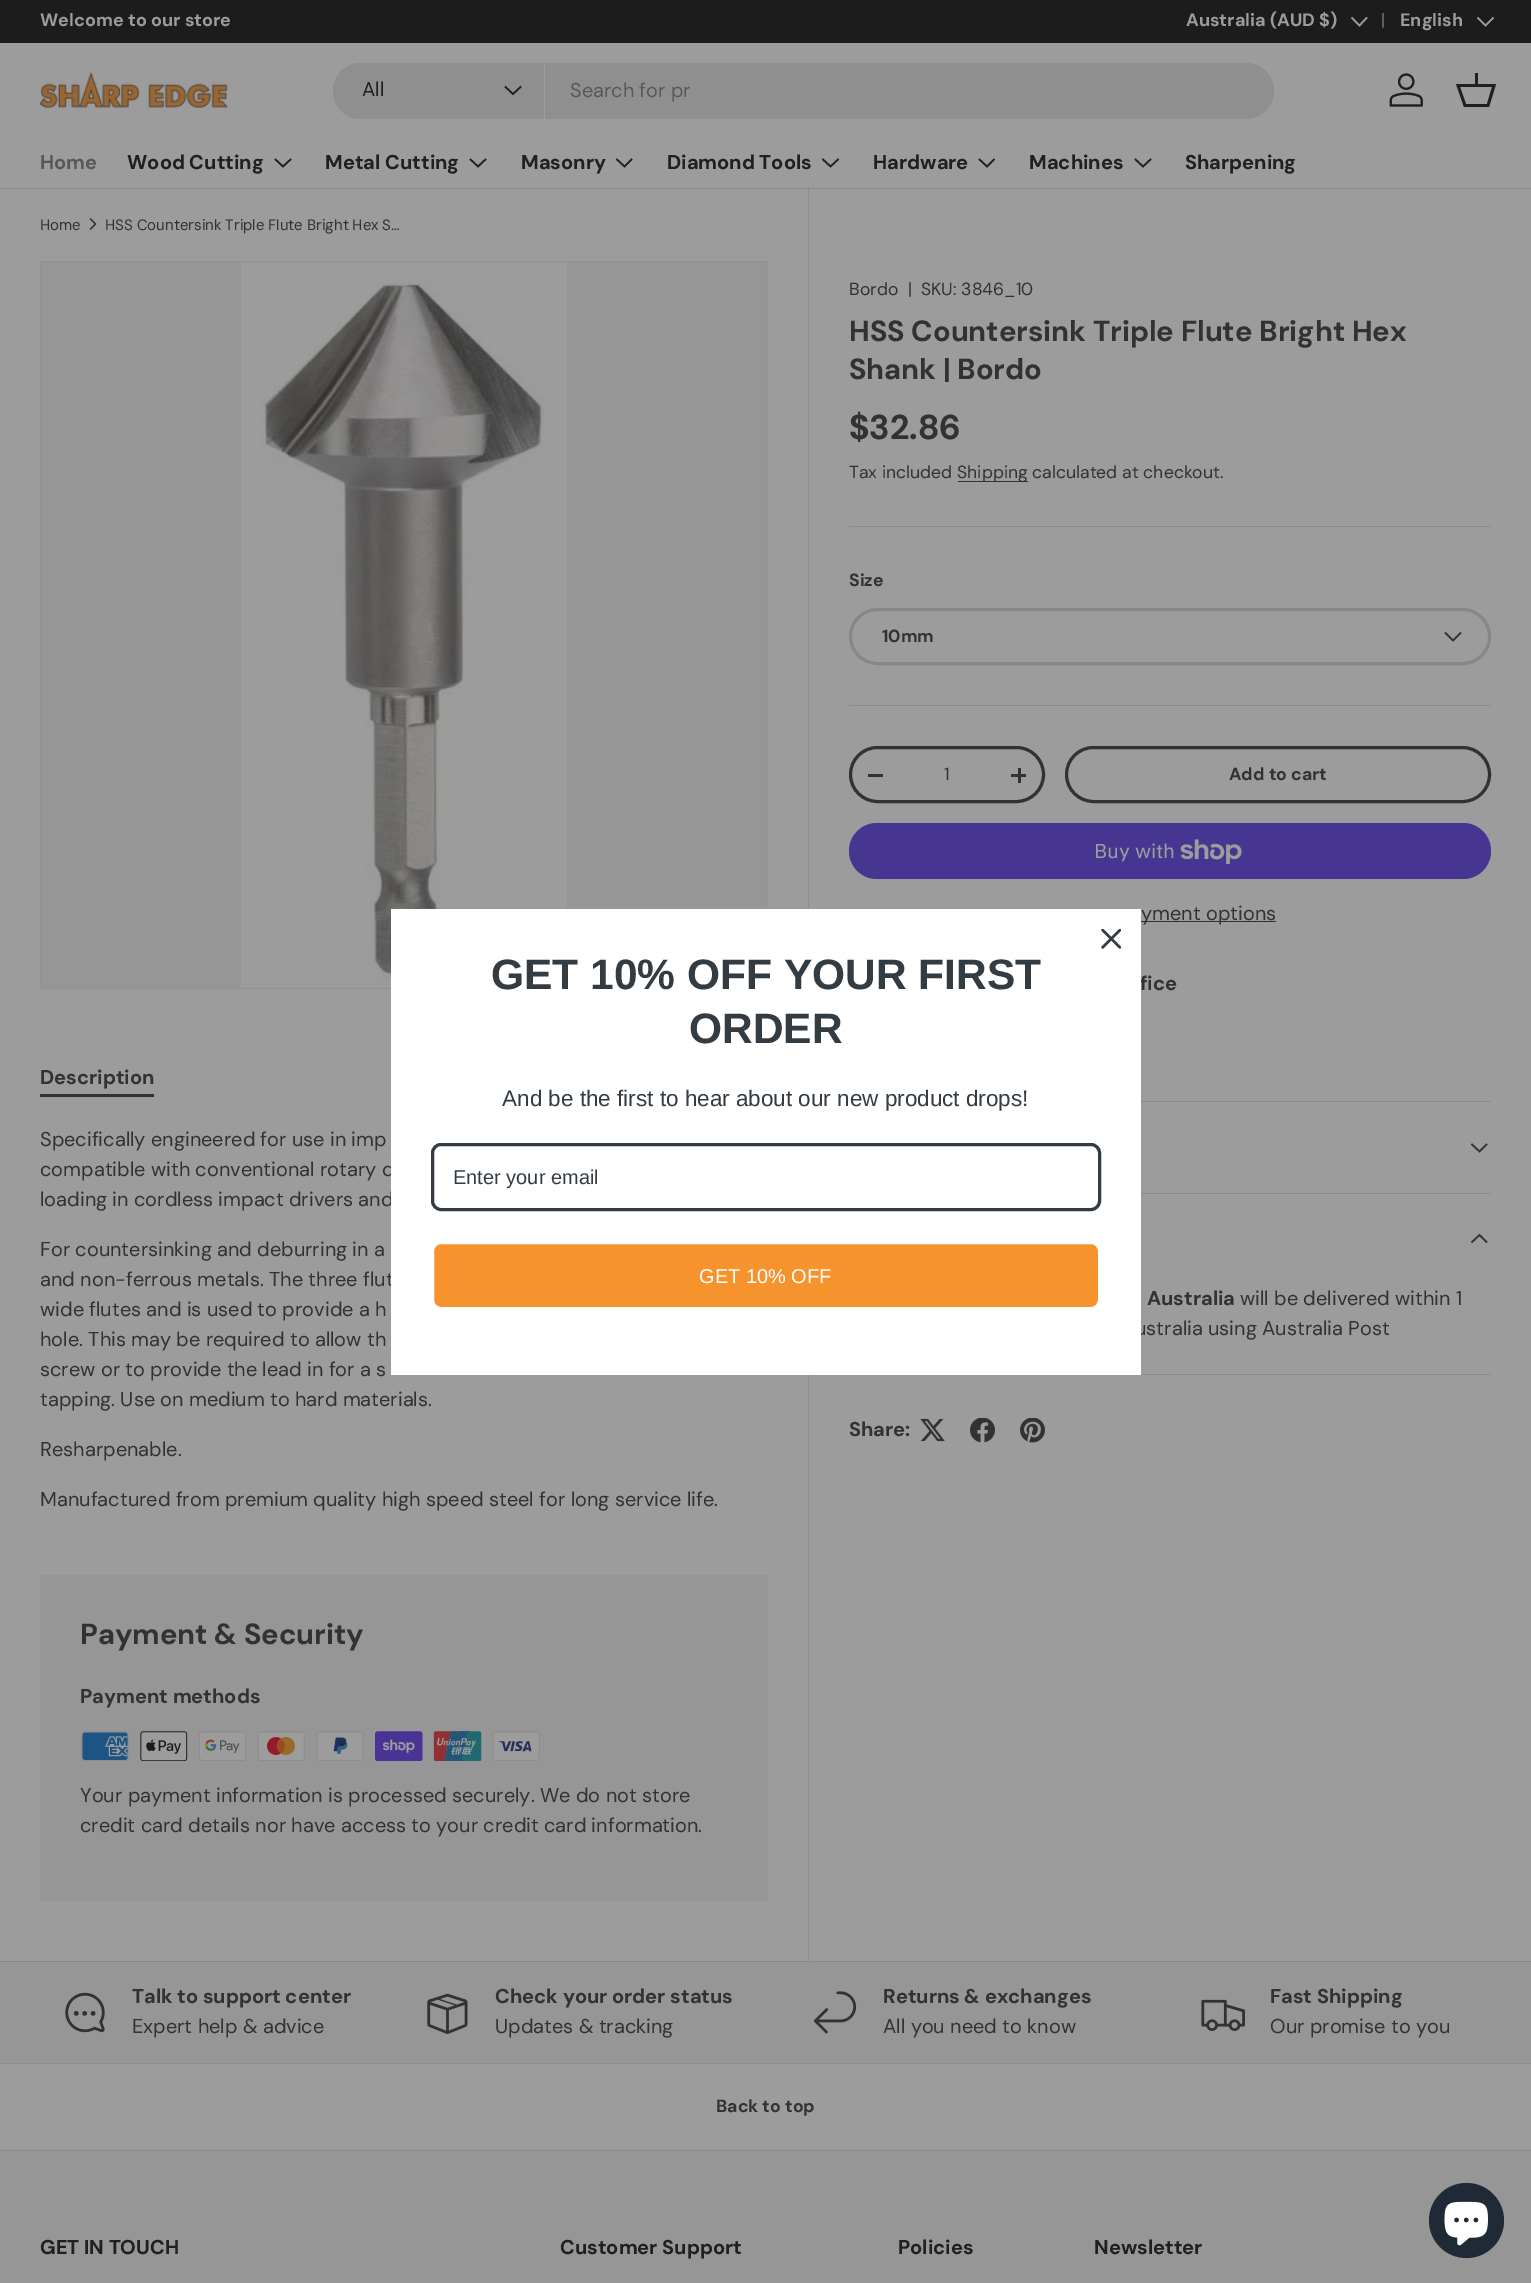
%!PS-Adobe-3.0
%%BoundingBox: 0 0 1531 2283
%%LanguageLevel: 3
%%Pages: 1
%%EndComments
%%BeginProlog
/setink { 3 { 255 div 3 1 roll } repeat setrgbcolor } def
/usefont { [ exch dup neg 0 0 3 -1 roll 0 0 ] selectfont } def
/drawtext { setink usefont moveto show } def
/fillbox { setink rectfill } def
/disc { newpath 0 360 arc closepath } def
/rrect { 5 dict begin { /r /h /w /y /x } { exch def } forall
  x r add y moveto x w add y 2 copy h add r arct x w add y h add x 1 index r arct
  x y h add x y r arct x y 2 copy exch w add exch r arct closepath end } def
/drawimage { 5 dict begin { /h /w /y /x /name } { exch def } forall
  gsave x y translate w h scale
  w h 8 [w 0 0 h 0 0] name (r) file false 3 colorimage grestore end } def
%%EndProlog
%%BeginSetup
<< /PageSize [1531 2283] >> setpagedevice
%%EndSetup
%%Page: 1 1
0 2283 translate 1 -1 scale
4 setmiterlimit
0 0 1531 2283 156 156 156 fillbox
0 0 1531 43 28 28 28 fillbox
(Welcome to our store) 40 26 /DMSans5-Bold 18 156 156 156 drawtext
(Australia \(AUD $\)) 1186 26 /DMSans5-Bold 18 156 156 156 drawtext
1.6 setlinewidth
1367 17.5 moveto 1359.5 25.5 lineto 1351.5 17.5 lineto stroke
(|) 1381 26 /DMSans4-Regular 18 118 118 118 drawtext
(English) 1400 26 /DMSans5-Bold 18 156 156 156 drawtext
1493.5 17.5 moveto 1485.5 25.5 lineto 1477.5 17.5 lineto stroke
0 188 1531 1 137 137 137 fillbox
(assets/img1.rgb) 40 72 188 36 drawimage
143 143 143 setink
333 63 941 56 28 rrect fill
361 63 moveto 545 63 lineto 545 119 lineto 361 119 lineto 345.5 119 333 106.5 333 91 curveto 333 75.5 345.5 63 361 63 curveto closepath fill
544 63 1 56 156 156 156 fillbox
(All) 362 96 /DMSans-Regular 20 32 32 32 drawtext
521 86.5 moveto 513 94 lineto 505 86.5 lineto stroke
(Search for pr) 570 97 /DMSans-Regular 20 88 88 88 drawtext
(assets/img2.rgb) 1389 73 34 34 drawimage
32 32 32 setink
1475 84 moveto 1475 73 lineto 1478 73 lineto 1478 84 lineto 1496 84 lineto 1489 107 lineto 1464 107 lineto 1456 84 lineto closepath 1460 87 moveto 1466 104 lineto 1487 104 lineto 1492 87 lineto closepath fill
(Home) 40 169 /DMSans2-Bold 20 88 88 88 drawtext
(Wood Cutting) 127 169 /DMSans2-Bold 20 32 32 32 drawtext
291 159 moveto 283 166.5 lineto 275 159 lineto stroke
(Metal Cutting) 325 169 /DMSans2-Bold 20 32 32 32 drawtext
486 159 moveto 478 166.5 lineto 470 159 lineto stroke
(Masonry) 521 169 /DMSans2-Bold 20 32 32 32 drawtext
632 159 moveto 624.5 166.5 lineto 616.5 159 lineto stroke
(Diamond Tools) 667 169 /DMSans2-Bold 20 32 32 32 drawtext
838.5 159 moveto 830.5 166.5 lineto 822.5 159 lineto stroke
(Hardware) 873 169 /DMSans2-Bold 20 32 32 32 drawtext
994.5 159 moveto 987 166.5 lineto 979 159 lineto stroke
(Machines) 1029 169 /DMSans2-Bold 20 32 32 32 drawtext
1151 159 moveto 1143 166.5 lineto 1135 159 lineto stroke
(Sharpening) 1185 169 /DMSans2-Bold 20 32 32 32 drawtext
(Home) 40 230 /DMSans2-Regular 15 49 50 49 drawtext
1.1 setlinewidth
90 218.5 moveto 95.5 224 lineto 90 229.5 lineto stroke
105 230 moveto -0.25 0 32 (HSS Countersink Triple Flute Bright Hex S…) widthshow
(Description) 40 1084 /DMSans2-Bold 20 49 50 49 drawtext
40 1094 114 3 49 50 49 fillbox
(Specifically engineered for use in imp) 40 1146 /DMSans-Regular 20 49 50 49 drawtext
(compatible with conventional rotary d) 40 1176 /DMSans-Regular 20 49 50 49 drawtext
(loading in cordless impact drivers and) 40 1206 /DMSans-Regular 20 49 50 49 drawtext
(For countersinking and deburring in a) 40 1256 /DMSans-Regular 20 49 50 49 drawtext
(and non-ferrous metals. The three flut) 40 1286 /DMSans-Regular 20 49 50 49 drawtext
(wide flutes and is used to provide a h) 40 1316 /DMSans-Regular 20 49 50 49 drawtext
(hole. This may be required to allow th) 40 1346 /DMSans-Regular 20 49 50 49 drawtext
(screw or to provide the lead in for a s) 40 1376 /DMSans-Regular 20 49 50 49 drawtext
(tapping. Use on medium to hard materials.) 40 1406 /DMSans-Regular 20 49 50 49 drawtext
(Resharpenable.) 40 1456 /DMSans-Regular 20 49 50 49 drawtext
(Manufactured from premium quality high speed steel for long service life.) 40 1506 /DMSans-Regular 20 49 50 49 drawtext
40 1575 728 326 150 150 150 fillbox
(Payment & Security) 80 1644 /DMSans-Bold 29.1 49 50 49 drawtext
(Payment methods) 80 1703 /DMSans2-Bold 20 49 50 49 drawtext
(assets/img3.rgb) 81 1731 48 30 drawimage
(assets/img4.rgb) 140 1731 48 30 drawimage
(assets/img5.rgb) 199 1731 47 30 drawimage
(assets/img6.rgb) 257 1731 48 30 drawimage
(assets/img7.rgb) 316 1731 48 30 drawimage
(assets/img8.rgb) 375 1731 48 30 drawimage
(assets/img9.rgb) 433 1731 49 30 drawimage
(assets/img10.rgb) 492 1731 48 30 drawimage
(Your payment information is processed securely. We do not store) 80 1802 /DMSans-Regular 20 49 50 49 drawtext
(credit card details nor have access to your credit card information.) 80 1832 /DMSans-Regular 20 49 50 49 drawtext
150 150 150 setink
40.5 261.5 moveto 767.5 261.5 lineto 767.5 988.5 lineto 40.5 988.5 lineto closepath gsave fill grestore
147 147 147 setink
1 setlinewidth
stroke
(assets/img11.rgb) 241 262 326 726 drawimage
0 1962 1531 101 150 150 150 fillbox
0 1961 1531 1 135 135 135 fillbox
808 189 1 1774 140 140 140 fillbox
(Bordo) 849 295 /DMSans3-Regular 17.6 49 50 49 drawtext
(|) 908 295 /DMSans3-Regular 17.6 49 50 49 drawtext
(SKU: 3846_10) 921 295 /DMSans3-Regular 17.6 49 50 49 drawtext
(HSS Countersink Triple Flute Bright Hex) 849 341 /DMSans-Bold 29.1 49 50 49 drawtext
(Shank | Bordo) 849 379 /DMSans-Bold 29.1 49 50 49 drawtext
($32.86) 849 439 /DMSans3-Bold 34.5 49 50 49 drawtext
(Tax included) 849 478 /DMSans3-Regular 17.6 49 50 49 drawtext
958 481 70 1 49 50 49 fillbox
(Shipping calculated at checkout.) 957 478 /DMSans3-Regular 17.6 49 50 49 drawtext
849 526 642 1 140 140 140 fillbox
(Size) 849 586 /DMSans4-Bold 17.6 49 50 49 drawtext
134 135 134 setink
3 setlinewidth
850.5 609.5 639 54 27 rrect stroke
(10mm) 882 642 /DMSans4-Bold 17.6 49 50 49 drawtext
1.6 setlinewidth
1461 632.5 moveto 1453 640.5 lineto 1445 632.5 lineto stroke
849 705 642 1 140 140 140 fillbox
49 50 49 setink
3 setlinewidth
850.5 747.5 193 54 27 rrect stroke
868 774 15 3 49 50 49 fillbox
(1) 944 780 /DMSans3-Regular 17.6 49 50 49 drawtext
1011 774 15 3 49 50 49 fillbox
1018 768 3 15 49 50 49 fillbox
1066.5 747.5 423 54 27 rrect stroke
(Add to cart) 1229 780 /DMSans4-Bold 17.6 49 50 49 drawtext
70 54 146 setink
849 823 642 56 28 rrect fill
(Buy with) 1094 858 /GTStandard-Regular 20 156 156 156 drawtext
(assets/img12.rgb) 1180 839 62 25 drawimage
1141 921 135 1 49 50 49 fillbox
(yment options) 1141 920 /DMSans-Regular 20 49 50 49 drawtext
(fice) 1140 990 /DMSans2-Bold 20 49 50 49 drawtext
1141 1101 350 1 140 140 140 fillbox
1141 1193 350 1 140 140 140 fillbox
49 50 49 setink
1.6 setlinewidth
1487 1144 moveto 1479.5 1151.5 lineto 1471.5 1144 lineto stroke
1141 1374 350 1 140 140 140 fillbox
49 50 49 setink
1487 1242.5 moveto 1479.5 1235 lineto 1471.5 1242.5 lineto stroke
(Australia) 1147 1305 /DMSans2-Bold 20 49 50 49 drawtext
(will be delivered within 1) 1240 1305 /DMSans-Regular 20 49 50 49 drawtext
(ustralia using Australia Post) 1135 1335 /DMSans-Regular 20 49 50 49 drawtext
(Share:) 849 1436 /DMSans2-Bold 20 49 50 49 drawtext
(assets/img13.rgb) 920 1418 25 24 drawimage
(assets/img14.rgb) 970 1418 25 25 drawimage
(assets/img15.rgb) 1020 1418 25 25 drawimage
391 909 750 466 255 255 255 fillbox
(assets/img16.rgb) 1101 929 20 20 drawimage
(GET 10% OFF YOUR FIRST) 491 989 /LiberationSans-Bold 42.5 51 59 67 drawtext
(ORDER) 689 1043 /LiberationSans-Bold 42.5 51 59 67 drawtext
(And be the first to hear about our new product drops!) 502 1106 /LiberationSans-Regular 22.5 51 59 67 drawtext
3 setlinewidth
432.5 1144.5 667 65 8.5 rrect stroke
(Enter your email) 453 1184 /LiberationSans-Regular 20 51 59 67 drawtext
247 147 44 setink
432.5 1242.5 667 66 8.5 rrect gsave fill grestore
255 255 255 setink
stroke
(GET 10% OFF) 699 1283 /LiberationSans-Regular 20 255 255 255 drawtext
(assets/img17.rgb) 65 1992 40 41 drawimage
(Talk to support center) 132 2003 /DMSans2-Bold 20 49 50 49 drawtext
(Expert help & advice) 132 2033 /DMSans-Regular 20 49 50 49 drawtext
(assets/img18.rgb) 427 1993 41 41 drawimage
(Check your order status) 495 2003 /DMSans2-Bold 20 49 50 49 drawtext
(Updates & tracking) 495 2033 /DMSans-Regular 20 49 50 49 drawtext
(assets/img19.rgb) 814 1991 43 43 drawimage
(Returns & exchanges) 883 2003 /DMSans2-Bold 20 49 50 49 drawtext
(All you need to know) 883 2033 /DMSans-Regular 20 49 50 49 drawtext
(assets/img20.rgb) 1201 1999 44 32 drawimage
(Fast Shipping) 1270 2003 /DMSans2-Bold 20 49 50 49 drawtext
(Our promise to you) 1270 2033 /DMSans-Regular 20 49 50 49 drawtext
0 2063 1531 1 140 140 140 fillbox
0 2150 1531 1 140 140 140 fillbox
(Back to top) 716 2112 /DMSans4-Bold 17.6 49 50 49 drawtext
0 2151 1531 132 150 150 150 fillbox
(GET IN TOUCH) 40 2254 /DMSans2-Bold 20 32 32 32 drawtext
(Customer Support) 560 2254 /DMSans2-Bold 20 32 32 32 drawtext
(Policies) 898 2254 /DMSans2-Bold 20 32 32 32 drawtext
(Newsletter) 1094 2254 /DMSans2-Bold 20 32 32 32 drawtext
32 42 54 setink
1466.5 2220.5 37.5 disc fill
(assets/img21.rgb) 1444 2201 44 45 drawimage
showpage
%%EOF
